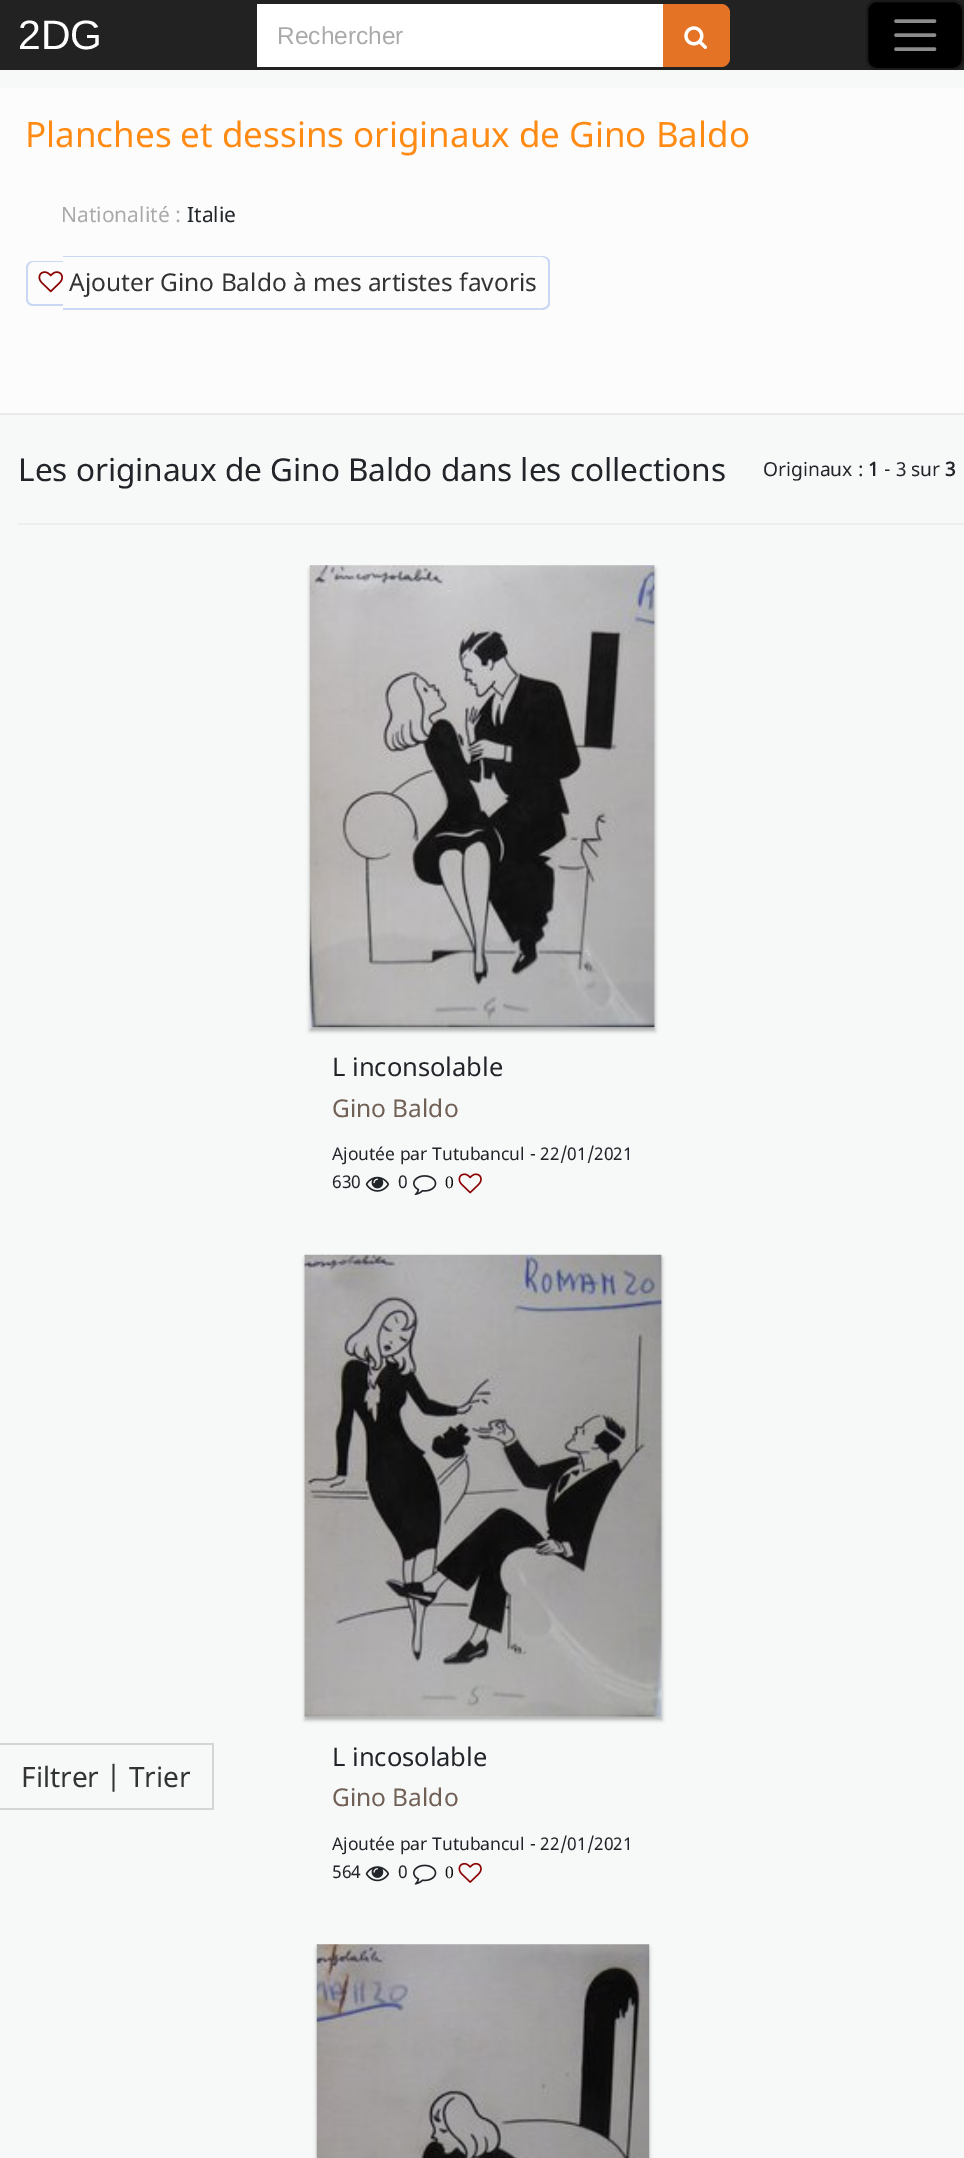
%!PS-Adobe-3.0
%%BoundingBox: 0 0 964 2158
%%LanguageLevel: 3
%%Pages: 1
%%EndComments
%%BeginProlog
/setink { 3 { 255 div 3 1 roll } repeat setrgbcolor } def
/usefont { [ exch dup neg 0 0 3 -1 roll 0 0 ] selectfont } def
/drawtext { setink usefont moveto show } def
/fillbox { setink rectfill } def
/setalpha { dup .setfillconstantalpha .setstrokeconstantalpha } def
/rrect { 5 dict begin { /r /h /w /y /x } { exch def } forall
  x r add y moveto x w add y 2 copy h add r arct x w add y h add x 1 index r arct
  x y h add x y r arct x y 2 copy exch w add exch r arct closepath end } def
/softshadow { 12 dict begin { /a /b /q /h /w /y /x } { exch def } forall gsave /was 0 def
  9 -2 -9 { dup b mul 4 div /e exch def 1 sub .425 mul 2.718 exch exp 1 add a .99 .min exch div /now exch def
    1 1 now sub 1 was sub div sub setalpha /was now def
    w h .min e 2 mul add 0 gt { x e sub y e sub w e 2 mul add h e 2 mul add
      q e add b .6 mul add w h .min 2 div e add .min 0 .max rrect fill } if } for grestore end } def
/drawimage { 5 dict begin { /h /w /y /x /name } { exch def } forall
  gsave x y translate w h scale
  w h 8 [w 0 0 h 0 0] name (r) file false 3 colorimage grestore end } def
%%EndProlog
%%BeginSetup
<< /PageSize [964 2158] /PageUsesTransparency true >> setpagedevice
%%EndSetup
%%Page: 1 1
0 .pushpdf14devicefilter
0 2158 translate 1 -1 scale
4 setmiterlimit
0 0 964 2158 247 248 248 fillbox
0 0 964 70 34 34 34 fillbox
(2DG) 18 49 /LiberationSans-Regular 41 255 255 255 drawtext
257 4 406 63 255 255 255 fillbox
(Rechercher) 277 44 /LiberationSans-Regular 24.5 170 170 170 drawtext
228 115 38 setink
663 4 moveto 721 4 lineto 726 4 730 8 730 13 curveto 730 58 lineto 730 63 726 67 721 67 curveto 663 67 lineto closepath fill
(assets/img1.rgb) 684 26 23 23 drawimage
0 0 0 setink
866 0 98 70 11 rrect fill
0.1 setalpha
255 255 255 setink
2 setlinewidth
867 1 96 68 10 rrect stroke
1 setalpha
140 140 140 setink
3.5 setlinewidth
1 setlinecap
896 21 moveto 934.5 21 lineto 896 35 moveto 934.5 35 lineto 896 49 moveto 934.5 49 lineto stroke
0 88 964 325 252 252 253 fillbox
0 413 964 2 234 234 234 fillbox
(Planches et dessins originaux de Gino Baldo) 25 147 /NotoSans-Regular 35 255 139 21 drawtext
(Nationalité :) 61 222 /NotoSans-Regular 21 170 170 170 drawtext
(Italie) 187 222 /NotoSans-Regular 21 33 37 41 drawtext
202 216 243 setink
33 261 moveto 63 261 lineto 63 306 lineto 33 306 lineto 29 306 26 303 26 299 curveto 26 268 lineto 26 264 29 261 33 261 curveto closepath 33 262 moveto 63 262 lineto 63 304 lineto 33 304 lineto 30 304 28 302 28 299 curveto 28 268 lineto 28 265 30 262 33 262 curveto closepath eofill
63 256 moveto 542 256 lineto 546 256 550 259 550 262 curveto 550 303 lineto 550 307 546 310 542 310 curveto 63 310 lineto closepath 63 257 moveto 542 257 lineto 545 257 548 260 548 262 curveto 548 303 lineto 548 306 545 308 542 308 curveto 63 308 lineto closepath eofill
(assets/img2.rgb) 38 271 25 22 drawimage
(Ajouter Gino Baldo à mes artistes favoris) 69 291 /NotoSans-Regular 24.5 51 51 51 drawtext
(Les originaux de Gino Baldo dans les collections) 18 481 /NotoSans-Regular 31.5 33 37 41 drawtext
(Originaux :) 763 476 /NotoSans-Regular 19.25 33 37 41 drawtext
(1) 868 476 /NotoSans-Bold 19.25 33 37 41 drawtext
(- 3 sur) 884 476 /NotoSans-Regular 19.25 33 37 41 drawtext
(3) 945 476 /NotoSans-Bold 19.25 33 37 41 drawtext
18 523 946 2 238 238 238 fillbox
0 0 0 setink
310 569 345 462 0 2 0.3 softshadow
(assets/img3.rgb) 309 565 346 463 drawimage
(L inconsolable) 332 1076 /NotoSans-Regular 25.5 33 37 41 drawtext
(Gino Baldo) 332 1117 /NotoSans-Regular 24.5 112 96 86 drawtext
(Ajoutée par) 332 1160 /NotoSans-Regular 17.5 33 37 41 drawtext
(Tutubancul) 432 1160 /NotoSans-Regular 17.5 33 37 41 drawtext
(- 22/01/2021) 530 1160 /NotoSans-Regular 17.5 33 37 41 drawtext
(630) 332 1188 /NotoSans-Regular 17.5 33 37 41 drawtext
(assets/img4.rgb) 365 1176 25 16 drawimage
(0) 398 1188 /NotoSans-Regular 17.5 33 37 41 drawtext
(assets/img5.rgb) 413 1175 24 21 drawimage
(0) 445 1188 /LiberationSerif-Regular 17.5 17 17 17 drawtext
(assets/img6.rgb) 458 1173 24 21 drawimage
0 0 0 setink
305 1258 357 462 0 2 0.3 softshadow
(assets/img7.rgb) 304 1254 358 463 drawimage
(L incosolable) 332 1766 /NotoSans-Regular 25.5 33 37 41 drawtext
(Gino Baldo) 332 1806 /NotoSans-Regular 24.5 112 96 86 drawtext
(Ajoutée par) 332 1850 /NotoSans-Regular 17.5 33 37 41 drawtext
(Tutubancul) 432 1850 /NotoSans-Regular 17.5 33 37 41 drawtext
(- 22/01/2021) 530 1850 /NotoSans-Regular 17.5 33 37 41 drawtext
(564) 332 1878 /NotoSans-Regular 17.5 33 37 41 drawtext
(assets/img8.rgb) 365 1866 25 16 drawimage
(0) 398 1878 /NotoSans-Regular 17.5 33 37 41 drawtext
(assets/img9.rgb) 413 1864 24 21 drawimage
(0) 445 1878 /LiberationSerif-Regular 17.5 17 17 17 drawtext
(assets/img10.rgb) 458 1862 24 21 drawimage
0 0 0 setink
317 1948 332 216 0 2 0.3 softshadow
(assets/img11.rgb) 316 1944 334 214 drawimage
0 1743 214 2 213 213 213 fillbox
212 1743 2 67 213 213 213 fillbox
0 1808 214 2 213 213 213 fillbox
(Filtrer | Trier) 21 1787 /NotoSans-Regular 28 51 51 51 drawtext
.poppdf14devicefilter showpage
%%EOF
